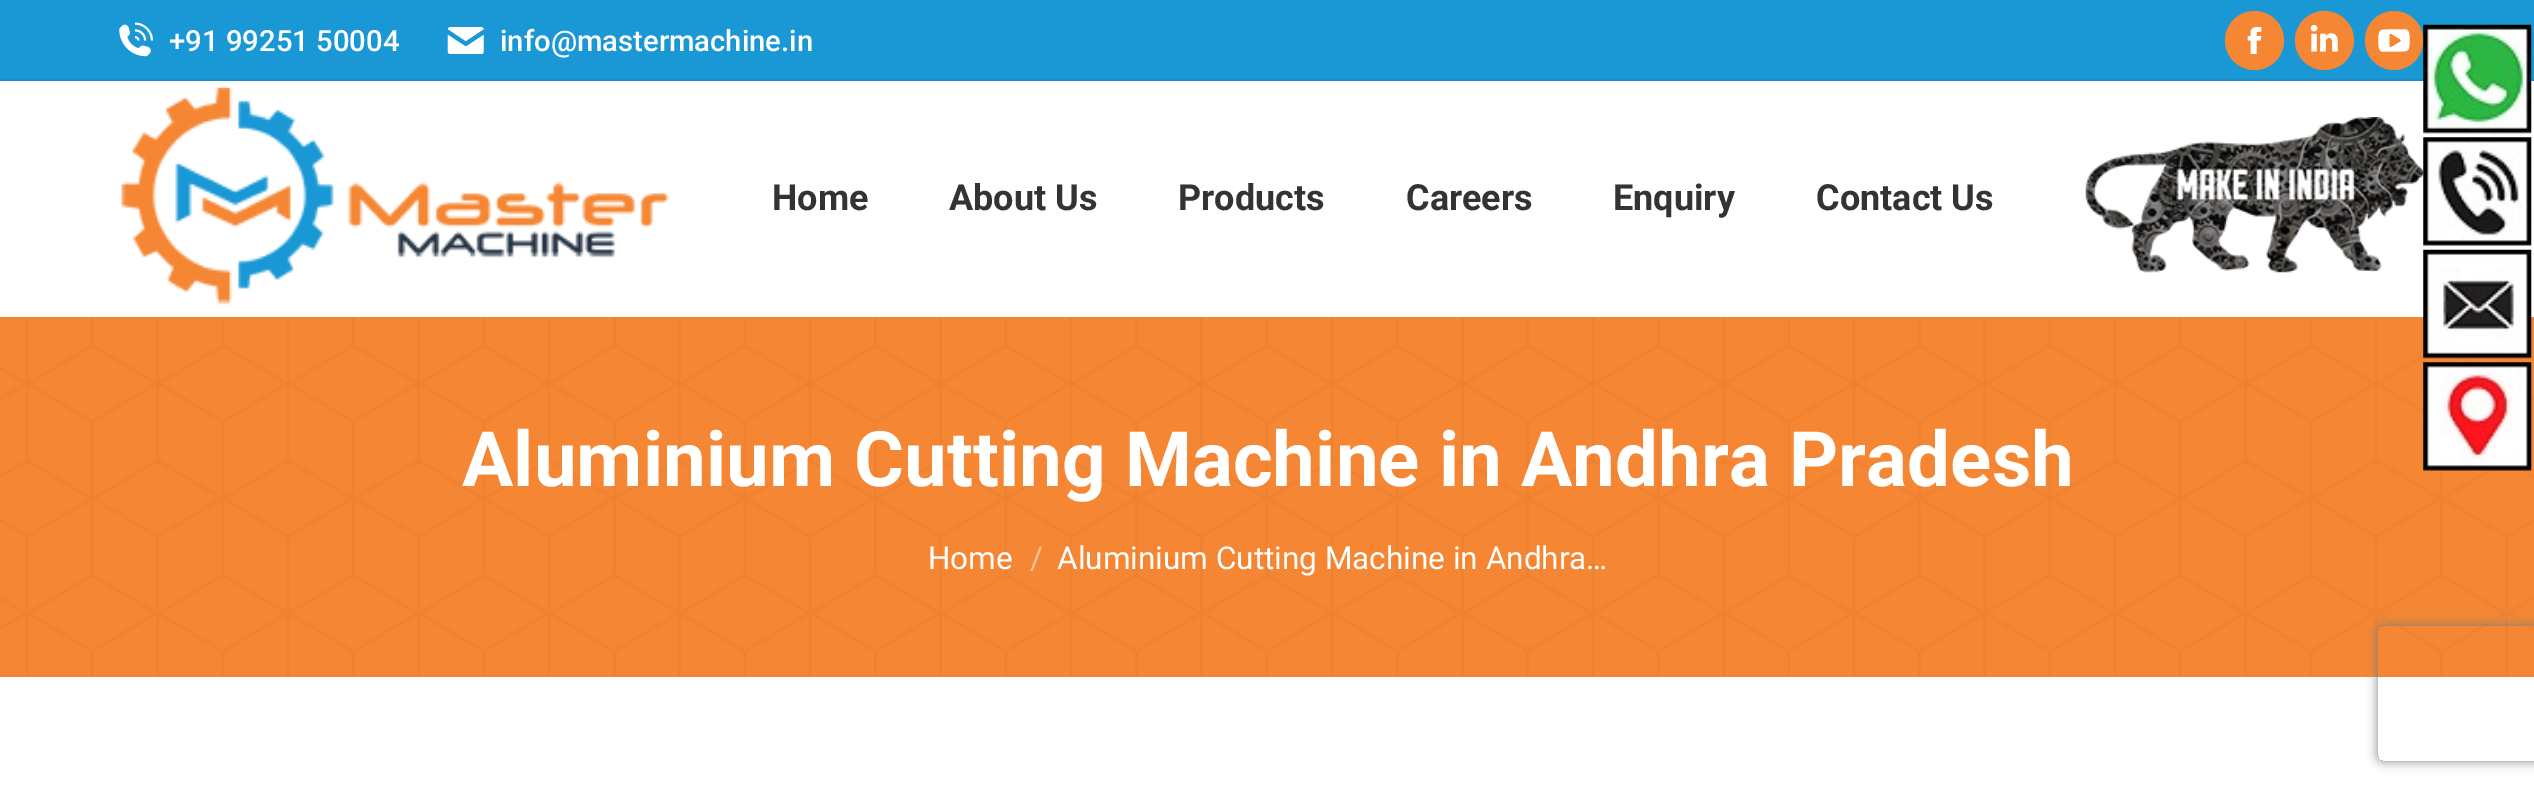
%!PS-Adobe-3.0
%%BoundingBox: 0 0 2534 790
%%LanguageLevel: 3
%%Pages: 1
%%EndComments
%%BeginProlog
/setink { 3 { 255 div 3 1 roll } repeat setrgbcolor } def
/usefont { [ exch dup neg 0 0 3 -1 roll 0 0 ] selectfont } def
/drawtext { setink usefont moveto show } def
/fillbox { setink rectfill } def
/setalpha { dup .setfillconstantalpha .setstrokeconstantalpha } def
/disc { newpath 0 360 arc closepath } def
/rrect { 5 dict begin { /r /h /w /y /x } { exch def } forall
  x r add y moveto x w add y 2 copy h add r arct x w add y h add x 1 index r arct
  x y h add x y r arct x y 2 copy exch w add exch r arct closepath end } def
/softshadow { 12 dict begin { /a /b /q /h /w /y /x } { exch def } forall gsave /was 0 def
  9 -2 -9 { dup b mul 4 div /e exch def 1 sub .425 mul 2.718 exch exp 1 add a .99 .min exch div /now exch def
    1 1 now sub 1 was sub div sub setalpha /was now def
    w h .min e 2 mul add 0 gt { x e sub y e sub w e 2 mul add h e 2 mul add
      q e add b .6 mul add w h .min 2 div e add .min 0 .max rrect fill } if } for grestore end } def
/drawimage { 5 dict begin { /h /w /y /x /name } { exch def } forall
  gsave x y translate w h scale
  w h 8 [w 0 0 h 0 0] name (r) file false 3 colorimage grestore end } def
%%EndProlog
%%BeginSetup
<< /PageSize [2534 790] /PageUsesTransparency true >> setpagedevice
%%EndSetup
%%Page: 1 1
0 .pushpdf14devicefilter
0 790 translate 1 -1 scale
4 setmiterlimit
0 0 2534 790 255 255 255 fillbox
0 0 2534 79 25 152 213 fillbox
(assets/img1.rgb) 119 22 34 35 drawimage
(+91 99251 50004) 169 51 /Roboto-Medium 29.25 255 255 255 drawtext
(assets/img2.rgb) 447 27 37 27 drawimage
(info@mastermachine.in) 500 51 /Roboto-Medium 29.25 255 255 255 drawtext
245 134 51 setink
2254.5 40.5 29.5 disc fill
(assets/img3.rgb) 2247 27 15 27 drawimage
2324.5 40.5 29.5 disc fill
(assets/img4.rgb) 2310 24 28 28 drawimage
2365 11 58 59 29 rrect fill
(assets/img5.rgb) 2378 29 32 23 drawimage
0 79 2534 2 28 141 195 fillbox
(assets/img6.rgb) 121 87 548 218 drawimage
(Home) 772 210 /Roboto-Bold 36 51 51 51 drawtext
(About Us) 949 210 /Roboto-Bold 36 51 51 51 drawtext
(Products) 1178 210 /Roboto-Bold 36 51 51 51 drawtext
(Careers) 1406 210 /Roboto-Bold 36 51 51 51 drawtext
(Enquiry) 1613 210 /Roboto-Bold 36 51 51 51 drawtext
(Contact Us) 1816 210 /Roboto-Bold 36 51 51 51 drawtext
(assets/img7.rgb) 2085 117 339 156 drawimage
0 317 2534 360 245 134 51 fillbox
(assets/img8.rgb) 0 317 2534 360 drawimage
(Aluminium Cutting Machine in Andhra Pradesh) 462 486 /Roboto-Bold 76.5 255 255 255 drawtext
(Home) 928 569 /Roboto-Regular 31.5 255 255 255 drawtext
(/) 1030 569 /Roboto-Regular 31.5 250 195 153 drawtext
(Aluminium Cutting Machine in Andhra…) 1057 569 /Roboto-Regular 31.5 255 255 255 drawtext
(assets/img9.rgb) 2423 24 109 110 drawimage
(assets/img10.rgb) 2423 137 109 109 drawimage
(assets/img11.rgb) 2423 249 109 110 drawimage
(assets/img12.rgb) 2423 362 109 109 drawimage
gsave
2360 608 moveto 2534 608 lineto 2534 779 lineto 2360 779 lineto closepath 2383 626 moveto 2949 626 lineto 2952 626 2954 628 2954 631 curveto 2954 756 lineto 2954 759 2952 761 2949 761 curveto 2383 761 lineto 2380 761 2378 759 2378 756 curveto 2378 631 lineto 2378 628 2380 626 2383 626 curveto closepath eoclip newpath
128 128 128 setink
2378 626 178 135 5 5.5 1 softshadow
grestore
.poppdf14devicefilter showpage
%%EOF
